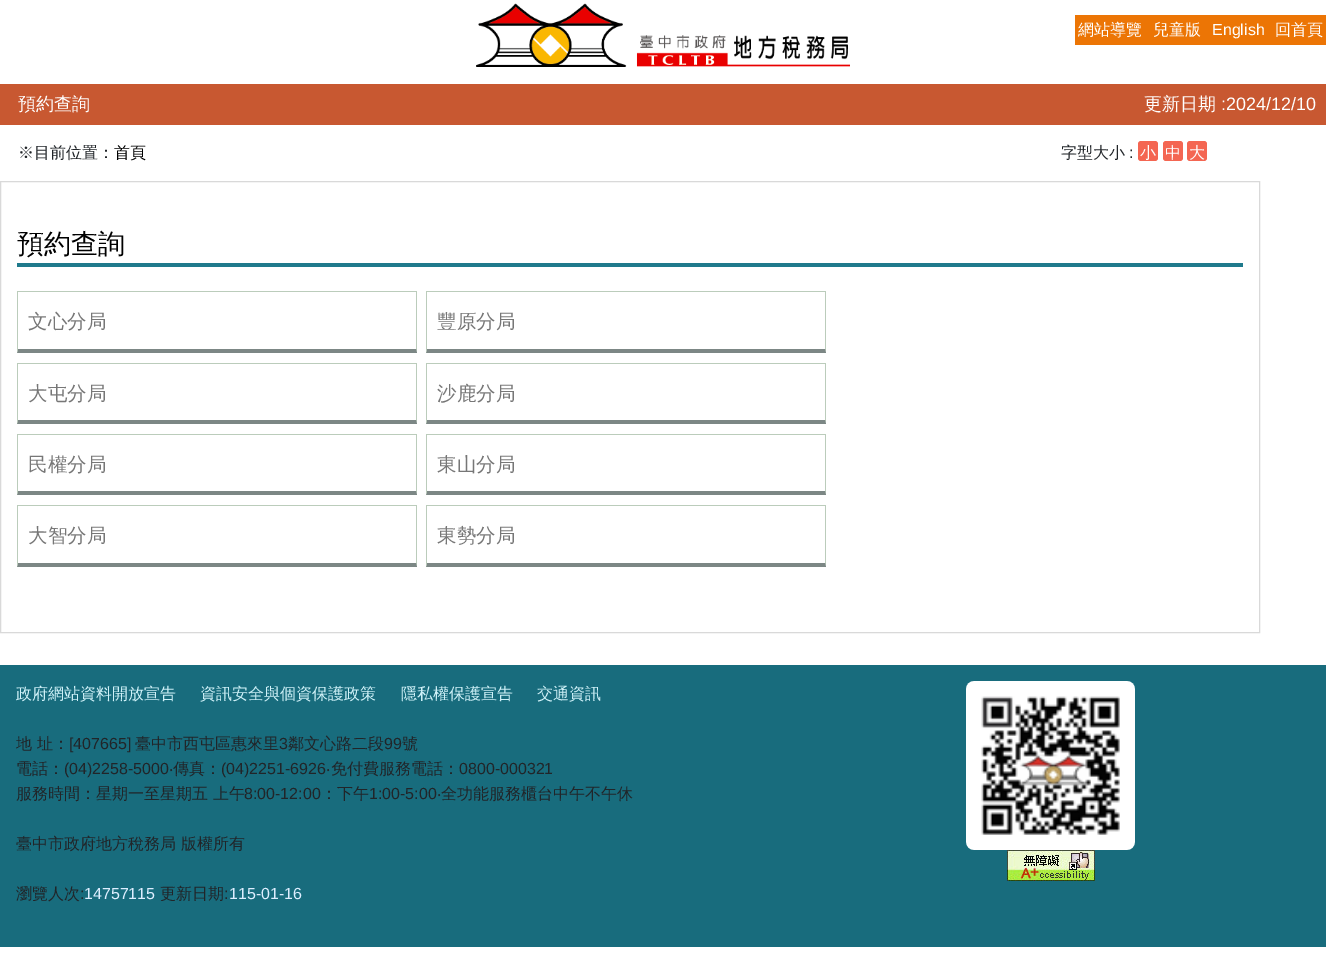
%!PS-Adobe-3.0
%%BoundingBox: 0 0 1326 964
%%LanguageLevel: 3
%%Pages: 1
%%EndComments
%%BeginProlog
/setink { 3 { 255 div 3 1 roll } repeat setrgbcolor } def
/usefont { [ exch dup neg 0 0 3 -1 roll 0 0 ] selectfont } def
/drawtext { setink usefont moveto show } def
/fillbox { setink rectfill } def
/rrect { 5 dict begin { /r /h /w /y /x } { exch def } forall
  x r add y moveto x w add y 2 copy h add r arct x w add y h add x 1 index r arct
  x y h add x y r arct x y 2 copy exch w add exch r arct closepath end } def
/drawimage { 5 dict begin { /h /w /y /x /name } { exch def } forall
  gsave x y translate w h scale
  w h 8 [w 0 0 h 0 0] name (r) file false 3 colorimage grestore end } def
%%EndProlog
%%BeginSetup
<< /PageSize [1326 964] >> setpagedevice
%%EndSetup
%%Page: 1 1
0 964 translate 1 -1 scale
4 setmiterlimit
0 0 1326 964 255 255 255 fillbox
(assets/img1.rgb) 476 3 374 64 drawimage
1075 15 251 30 236 117 5 fillbox
(網站導覽) 1078 35 /WenQuanYiZenHei-Medium 16 255 255 255 drawtext
(兒童版) 1153 35 /WenQuanYiZenHei-Medium 16 255 255 255 drawtext
(English) 1212 35 /LiberationSans-Regular 16 255 255 255 drawtext
(回首頁) 1275 35 /WenQuanYiZenHei-Medium 16 255 255 255 drawtext
0 84 1326 41 200 88 49 fillbox
(預約查詢) 18 110 /WenQuanYiZenHei-Medium 18 255 255 255 drawtext
(更新日期) 1144 110 /WenQuanYiZenHei-Medium 18 255 255 255 drawtext
(:2024/12/10) 1221 110 /LiberationSans-Regular 18 255 255 255 drawtext
(※目前位置：) 18 158 /WenQuanYiZenHei-Medium 16 33 37 41 drawtext
(首頁) 114 158 /WenQuanYiZenHei-Medium 16 0 0 0 drawtext
(字型大小) 1061 158 /WenQuanYiZenHei-Medium 16 33 37 41 drawtext
(:) 1129 158 /LiberationSans-Regular 16 33 37 41 drawtext
244 102 82 setink
1138 141 20 20 3 rrect fill
(小) 1140 158 /WenQuanYiZenHei-Medium 16 255 255 255 drawtext
244 102 82 setink
1163 141 20 20 3 rrect fill
(中) 1165 158 /WenQuanYiZenHei-Medium 16 255 255 255 drawtext
244 102 82 setink
1187 141 20 20 3 rrect fill
(大) 1189 158 /WenQuanYiZenHei-Medium 16 255 255 255 drawtext
217 217 217 setink
0.5 181.5 1259 451 rectstroke
17 263 1226 4 31 122 140 fillbox
(預約查詢) 17 253 /WenQuanYiZenHei-Medium 27 0 0 0 drawtext
17 291 400 1 187 204 187 fillbox
417 291 moveto 417 353 lineto 416 349 lineto 416 292 lineto closepath fill
124 135 133 setink
417 353 moveto 17 353 lineto 18 349 lineto 416 349 lineto closepath fill
187 204 187 setink
17 353 moveto 17 291 lineto 18 292 lineto 18 349 lineto closepath fill
(文心分局) 28 328 /WenQuanYiZenHei-Medium 19.5 119 119 119 drawtext
426 291 400 1 187 204 187 fillbox
826 291 moveto 826 353 lineto 825 349 lineto 825 292 lineto closepath fill
124 135 133 setink
826 353 moveto 426 353 lineto 427 349 lineto 825 349 lineto closepath fill
187 204 187 setink
426 353 moveto 426 291 lineto 427 292 lineto 427 349 lineto closepath fill
(豐原分局) 437 328 /WenQuanYiZenHei-Medium 19.5 119 119 119 drawtext
17 363 400 1 187 204 187 fillbox
417 363 moveto 417 424 lineto 416 420 lineto 416 364 lineto closepath fill
124 135 133 setink
417 424 moveto 17 424 lineto 18 420 lineto 416 420 lineto closepath fill
187 204 187 setink
17 424 moveto 17 363 lineto 18 364 lineto 18 420 lineto closepath fill
(大屯分局) 28 400 /WenQuanYiZenHei-Medium 19.5 119 119 119 drawtext
426 363 400 1 187 204 187 fillbox
826 363 moveto 826 424 lineto 825 420 lineto 825 364 lineto closepath fill
124 135 133 setink
826 424 moveto 426 424 lineto 427 420 lineto 825 420 lineto closepath fill
187 204 187 setink
426 424 moveto 426 363 lineto 427 364 lineto 427 420 lineto closepath fill
(沙鹿分局) 437 400 /WenQuanYiZenHei-Medium 19.5 119 119 119 drawtext
17 434 400 1 187 204 187 fillbox
417 434 moveto 417 495 lineto 416 491 lineto 416 435 lineto closepath fill
124 135 133 setink
417 495 moveto 17 495 lineto 18 491 lineto 416 491 lineto closepath fill
187 204 187 setink
17 495 moveto 17 434 lineto 18 435 lineto 18 491 lineto closepath fill
(民權分局) 28 471 /WenQuanYiZenHei-Medium 19.5 119 119 119 drawtext
426 434 400 1 187 204 187 fillbox
826 434 moveto 826 495 lineto 825 491 lineto 825 435 lineto closepath fill
124 135 133 setink
826 495 moveto 426 495 lineto 427 491 lineto 825 491 lineto closepath fill
187 204 187 setink
426 495 moveto 426 434 lineto 427 435 lineto 427 491 lineto closepath fill
(東山分局) 437 471 /WenQuanYiZenHei-Medium 19.5 119 119 119 drawtext
17 505 400 1 187 204 187 fillbox
417 505 moveto 417 567 lineto 416 563 lineto 416 506 lineto closepath fill
124 135 133 setink
417 567 moveto 17 567 lineto 18 563 lineto 416 563 lineto closepath fill
187 204 187 setink
17 567 moveto 17 505 lineto 18 506 lineto 18 563 lineto closepath fill
(大智分局) 28 542 /WenQuanYiZenHei-Medium 19.5 119 119 119 drawtext
426 505 400 1 187 204 187 fillbox
826 505 moveto 826 567 lineto 825 563 lineto 825 506 lineto closepath fill
124 135 133 setink
826 567 moveto 426 567 lineto 427 563 lineto 825 563 lineto closepath fill
187 204 187 setink
426 567 moveto 426 505 lineto 427 506 lineto 427 563 lineto closepath fill
(東勢分局) 437 542 /WenQuanYiZenHei-Medium 19.5 119 119 119 drawtext
0 665 1326 282 24 108 125 fillbox
(政府網站資料開放宣告) 16 699 /WenQuanYiZenHei-Medium 16 207 241 248 drawtext
(資訊安全與個資保護政策) 200 699 /WenQuanYiZenHei-Medium 16 207 241 248 drawtext
(隱私權保護宣告) 401 699 /WenQuanYiZenHei-Medium 16 207 241 248 drawtext
(交通資訊) 537 699 /WenQuanYiZenHei-Medium 16 207 241 248 drawtext
(地 址：) 16 749 /WenQuanYiZenHei-Medium 16 33 37 41 drawtext
([407665]) 69 749 /LiberationSans-Regular 16 33 37 41 drawtext
(臺中市西屯區惠來里) 135 749 /WenQuanYiZenHei-Medium 16 33 37 41 drawtext
(3) 279 749 /LiberationSans-Regular 16 33 37 41 drawtext
(鄰文心路二段) 288 749 /WenQuanYiZenHei-Medium 16 33 37 41 drawtext
(99) 384 749 /LiberationSans-Regular 16 33 37 41 drawtext
(號) 402 749 /WenQuanYiZenHei-Medium 16 33 37 41 drawtext
(電話：) 16 774 /WenQuanYiZenHei-Medium 16 33 37 41 drawtext
(\(04\)2258-5000) 64 774 /LiberationSans-Regular 16 33 37 41 drawtext
(‧) 169 774 /NotoSans-Regular 16 33 37 41 drawtext
(傳真：) 173 774 /WenQuanYiZenHei-Medium 16 33 37 41 drawtext
(\(04\)2251-6926) 221 774 /LiberationSans-Regular 16 33 37 41 drawtext
(‧) 326 774 /NotoSans-Regular 16 33 37 41 drawtext
(免付費服務電話：) 331 774 /WenQuanYiZenHei-Medium 16 33 37 41 drawtext
(0800-000321) 459 774 /LiberationSans-Regular 16 33 37 41 drawtext
(服務時間：星期一至星期五 上午) 16 799 /WenQuanYiZenHei-Medium 16 33 37 41 drawtext
(8:00-12:00) 244 799 /LiberationSans-Regular 16 33 37 41 drawtext
(：下午) 321 799 /WenQuanYiZenHei-Medium 16 33 37 41 drawtext
(1:00-5:00) 369 799 /LiberationSans-Regular 16 33 37 41 drawtext
(‧) 437 799 /NotoSans-Regular 16 33 37 41 drawtext
(全功能服務櫃台中午不午休) 441 799 /WenQuanYiZenHei-Medium 16 33 37 41 drawtext
(臺中市政府地方稅務局 版權所有) 16 849 /WenQuanYiZenHei-Medium 16 33 37 41 drawtext
(瀏覽人次) 16 899 /WenQuanYiZenHei-Medium 16 33 37 41 drawtext
(:) 80 899 /LiberationSans-Regular 16 33 37 41 drawtext
(14757115) 84 899 /LiberationSans-Regular 16 221 238 255 drawtext
(更新日期) 160 899 /WenQuanYiZenHei-Medium 16 33 37 41 drawtext
(:) 224 899 /LiberationSans-Regular 16 33 37 41 drawtext
(115-01-16) 229 899 /LiberationSans-Regular 16 221 238 255 drawtext
(assets/img2.rgb) 966 681 169 169 drawimage
(assets/img3.rgb) 1007 850 88 31 drawimage
showpage
%%EOF
